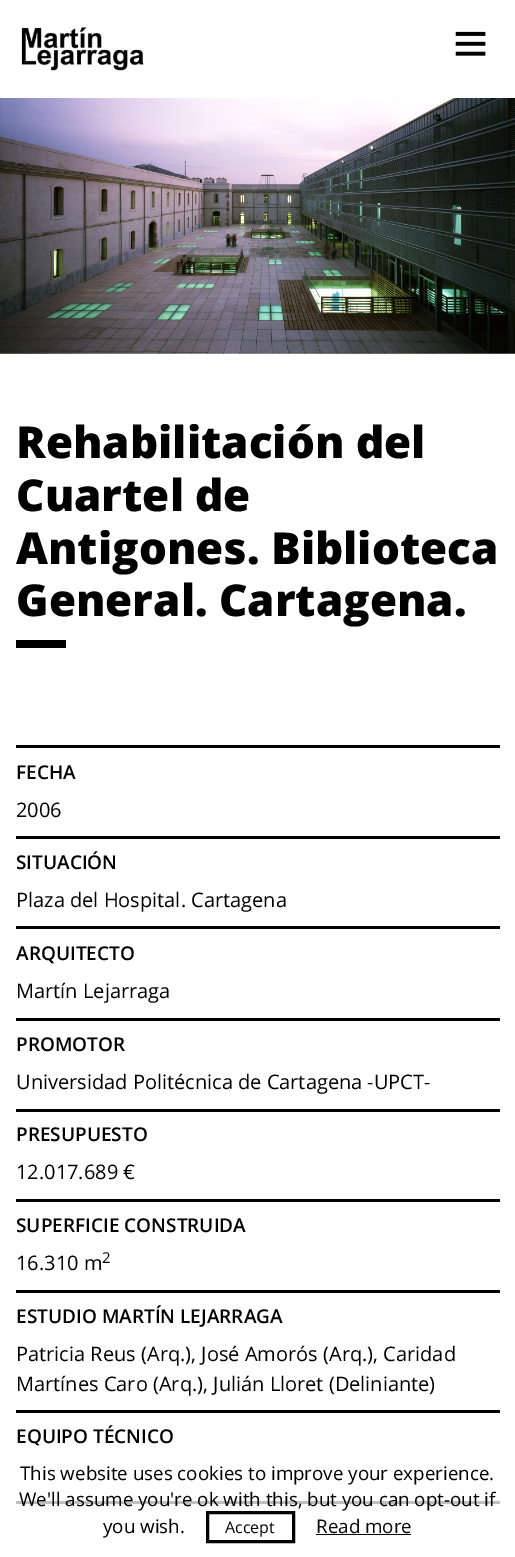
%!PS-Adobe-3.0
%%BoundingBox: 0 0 515 1557
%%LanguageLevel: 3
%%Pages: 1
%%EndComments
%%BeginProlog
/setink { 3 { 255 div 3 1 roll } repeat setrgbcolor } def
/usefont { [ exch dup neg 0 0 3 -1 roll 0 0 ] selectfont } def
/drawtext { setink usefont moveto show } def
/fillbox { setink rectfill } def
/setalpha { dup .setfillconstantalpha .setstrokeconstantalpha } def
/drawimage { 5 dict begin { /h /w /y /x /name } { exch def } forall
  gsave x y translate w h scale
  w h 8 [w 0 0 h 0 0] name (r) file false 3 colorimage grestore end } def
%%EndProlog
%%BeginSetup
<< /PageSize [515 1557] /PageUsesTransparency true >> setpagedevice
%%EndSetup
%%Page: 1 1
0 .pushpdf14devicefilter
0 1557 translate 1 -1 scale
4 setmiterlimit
0 0 515 1557 255 255 255 fillbox
(assets/img1.rgb) 21 27 123 44 drawimage
(assets/img2.rgb) 455 31 31 25 drawimage
(assets/img3.rgb) 0 98 515 256 drawimage
(Rehabilitación del) 16 458 /OpenSans-ExtraBold 44 0 0 0 drawtext
(Cuartel de) 16 511 /OpenSans-ExtraBold 44 0 0 0 drawtext
(Antigones. Biblioteca) 16 564 /OpenSans-ExtraBold 44 0 0 0 drawtext
(General. Cartagena.) 16 616 /OpenSans-ExtraBold 44 0 0 0 drawtext
16 640 50 8 0 0 0 fillbox
16 745 484 3 0 0 0 fillbox
(FECHA) 16 779 /OpenSans-SemiBold 19 0 0 0 drawtext
(2006) 16 817 /OpenSans-Regular 20 0 0 0 drawtext
16 836 484 3 0 0 0 fillbox
(SITUACIÓN) 16 869 /OpenSans-SemiBold 19 0 0 0 drawtext
(Plaza del Hospital. Cartagena) 16 907 /OpenSans-Regular 20 0 0 0 drawtext
16 926 484 3 0 0 0 fillbox
(ARQUITECTO) 16 960 /OpenSans-SemiBold 19 0 0 0 drawtext
(Martín Lejarraga) 16 998 /OpenSans-Regular 20 0 0 0 drawtext
16 1018 484 3 0 0 0 fillbox
(PROMOTOR) 16 1051 /OpenSans-SemiBold 19 0 0 0 drawtext
(Universidad Politécnica de Cartagena -UPCT-) 16 1089 /OpenSans-Regular 20 0 0 0 drawtext
16 1109 484 3 0 0 0 fillbox
(PRESUPUESTO) 16 1141 /OpenSans-SemiBold 19 0 0 0 drawtext
(12.017.689 €) 16 1179 /OpenSans-Regular 20 0 0 0 drawtext
16 1199 484 3 0 0 0 fillbox
(SUPERFICIE CONSTRUIDA) 16 1232 /OpenSans-SemiBold 19 0 0 0 drawtext
(16.310 m) 16 1270 /OpenSans-Regular 20 0 0 0 drawtext
(2) 102 1263 /OpenSans-Regular 15 0 0 0 drawtext
16 1290 484 3 0 0 0 fillbox
(ESTUDIO MARTÍN LEJARRAGA) 16 1323 /OpenSans-SemiBold 19 0 0 0 drawtext
(Patricia Reus \(Arq.\), José Amorós \(Arq.\), Caridad) 16 1361 /OpenSans-Regular 20 0 0 0 drawtext
(Martínes Caro \(Arq.\), Julián Lloret \(Deliniante\)) 16 1391 /OpenSans-Regular 20 0 0 0 drawtext
16 1410 484 3 0 0 0 fillbox
(EQUIPO TÉCNICO) 16 1443 /OpenSans-SemiBold 19 0 0 0 drawtext
16 1501 484 3 0 0 0 fillbox
0.75 setalpha
16 1445 484 59 255 255 255 fillbox
1 setalpha
(This website uses cookies to improve your experience.) 20 1480 /OpenSans-Regular 18.75 0 0 0 drawtext
(We'll assume you're ok with this, but you can opt-out if) 19 1506 /OpenSans-Regular 18.75 0 0 0 drawtext
(you wish.) 103 1533 /OpenSans-Regular 18.75 0 0 0 drawtext
3 setlinewidth
207.5 1512.5 86 29 rectstroke
(Accept) 225 1533 /OpenSans-Regular 16 0 0 0 drawtext
(Read more) 316 1533 /OpenSans-Regular 18.75 10 10 10 drawtext
316 1534 95 1 10 10 10 fillbox
.poppdf14devicefilter showpage
%%EOF
